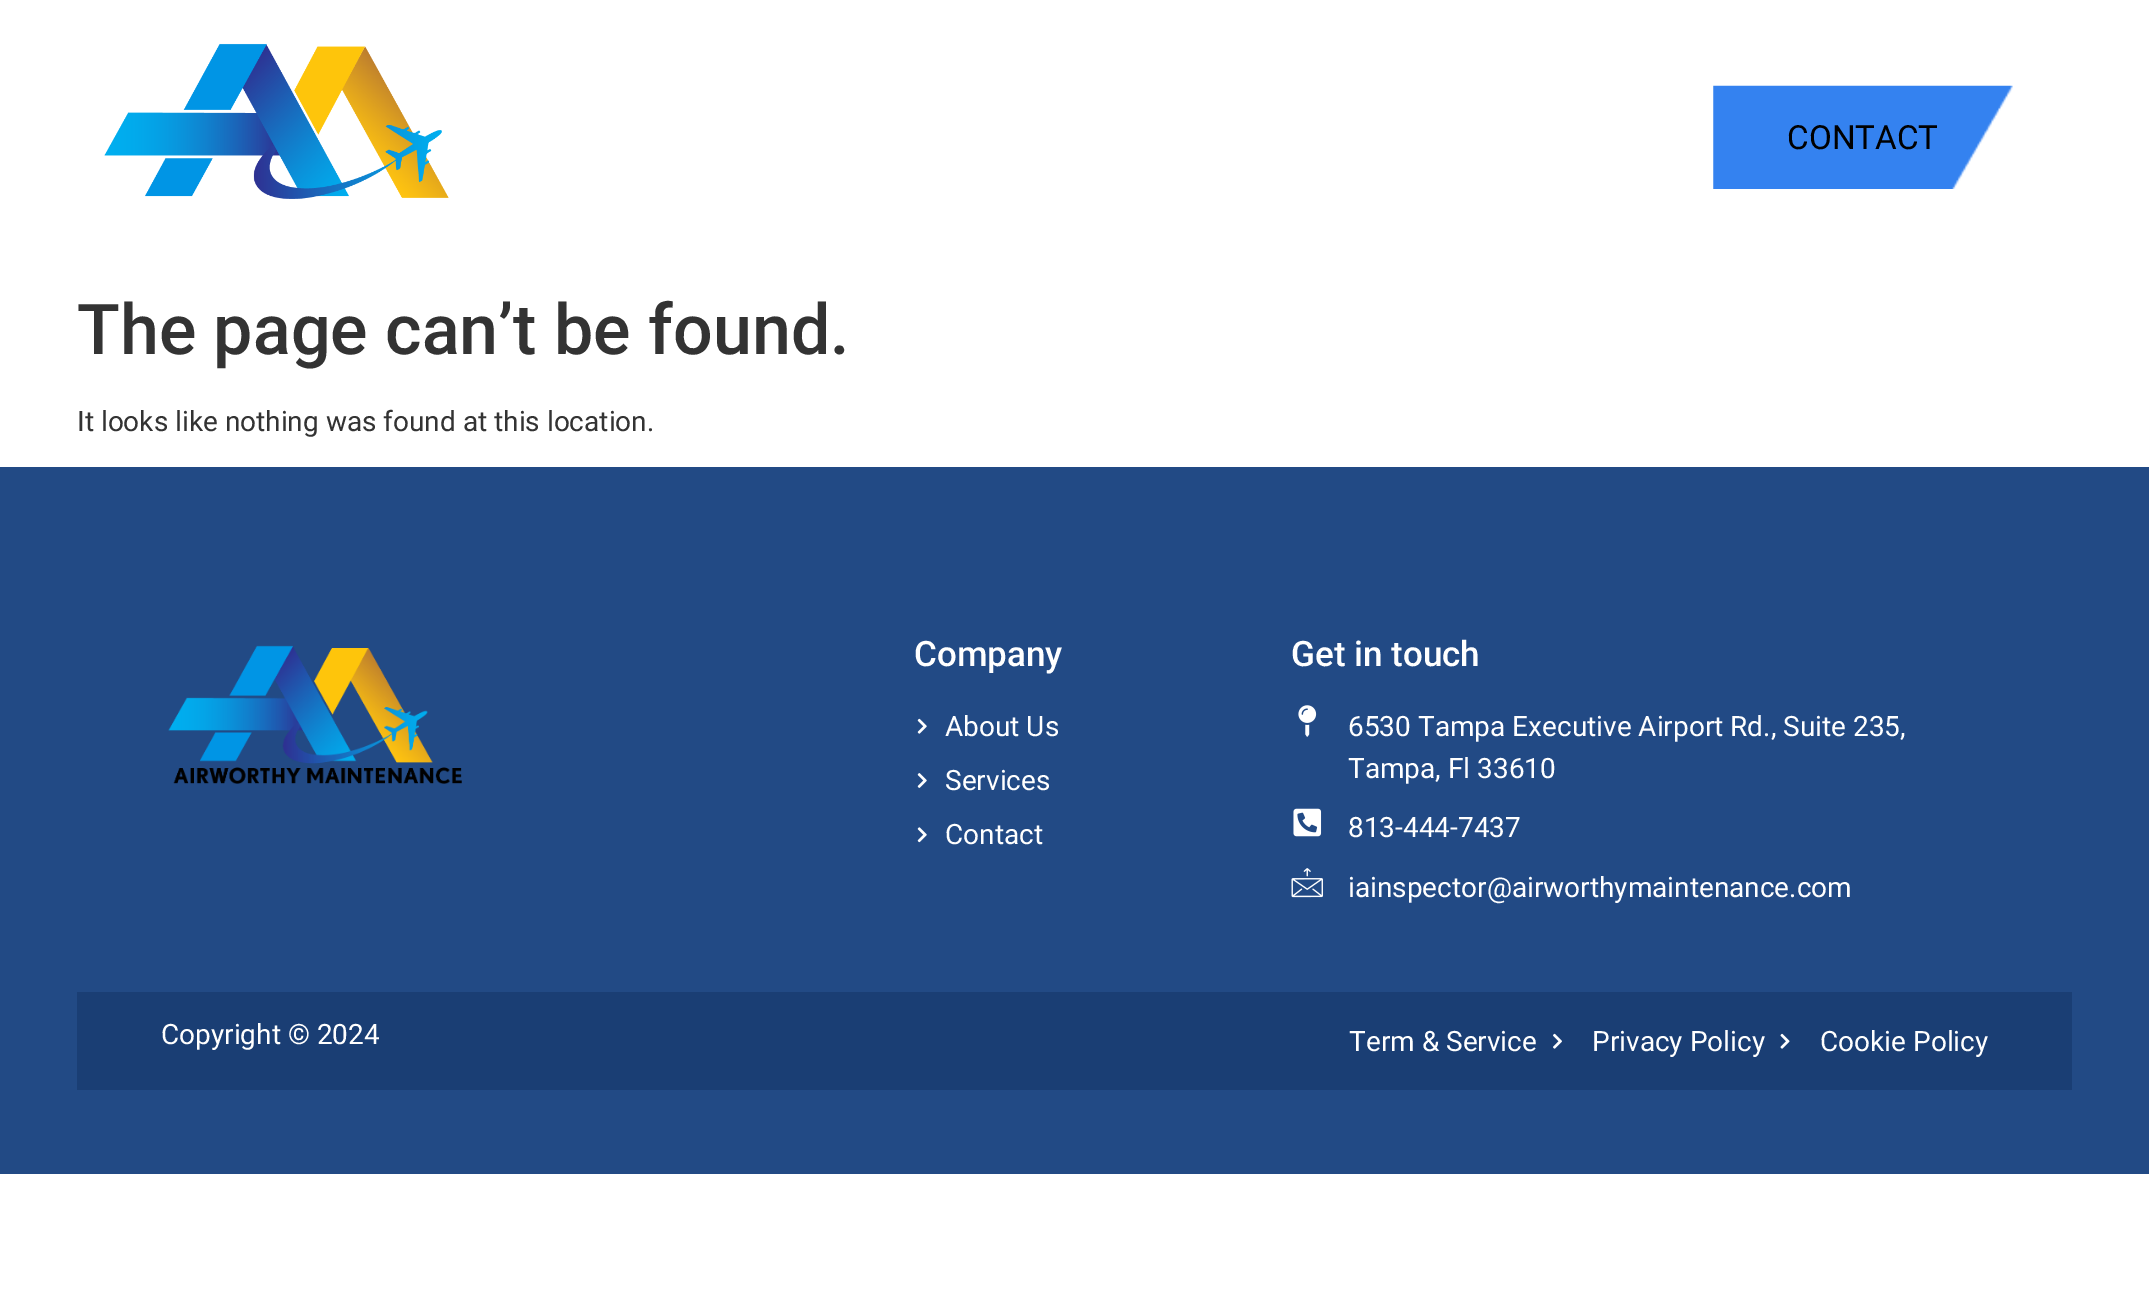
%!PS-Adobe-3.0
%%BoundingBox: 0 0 2149 1315
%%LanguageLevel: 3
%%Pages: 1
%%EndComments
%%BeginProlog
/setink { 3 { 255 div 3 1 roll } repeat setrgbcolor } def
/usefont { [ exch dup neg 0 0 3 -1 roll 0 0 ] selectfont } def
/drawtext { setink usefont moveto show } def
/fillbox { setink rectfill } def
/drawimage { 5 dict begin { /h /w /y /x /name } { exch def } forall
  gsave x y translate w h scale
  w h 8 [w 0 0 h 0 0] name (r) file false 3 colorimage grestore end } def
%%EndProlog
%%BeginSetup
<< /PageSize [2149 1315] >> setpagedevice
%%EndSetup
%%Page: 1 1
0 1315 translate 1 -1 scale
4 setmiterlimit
0 0 2149 1315 255 255 255 fillbox
(assets/img1.rgb) 104 43 345 156 drawimage
(assets/img2.rgb) 1713 85 300 104 drawimage
(CONTACT) 1787 149 /Roboto-Regular 33.25 0 0 0 drawtext
(The page can’t be found.) 77 354 /Roboto-Medium 70 51 51 51 drawtext
(It looks like nothing was found at this location.) 77 431 /Roboto-Regular 28 51 51 51 drawtext
0 467 2149 707 34 74 133 fillbox
(assets/img3.rgb) 168 645 294 139 drawimage
(Company) 914 666 /Roboto-Medium 35 255 255 255 drawtext
(assets/img4.rgb) 917 718 10 16 drawimage
(About Us) 945 736 /Roboto-Regular 28 255 255 255 drawtext
(assets/img5.rgb) 917 773 10 15 drawimage
(Services) 945 790 /Roboto-Regular 28 255 255 255 drawtext
(assets/img6.rgb) 917 827 10 16 drawimage
(Contact) 945 844 /Roboto-Regular 28 255 255 255 drawtext
(Get in touch) 1291 666 /Roboto-Medium 35 255 255 255 drawtext
(assets/img7.rgb) 1298 705 19 32 drawimage
(6530 Tampa Executive Airport Rd., Suite 235,) 1348 736 /Roboto-Regular 28 255 255 255 drawtext
(Tampa, Fl 33610) 1348 778 /Roboto-Regular 28 255 255 255 drawtext
(assets/img8.rgb) 1293 808 29 29 drawimage
(813-444-7437) 1348 837 /Roboto-Regular 28 255 255 255 drawtext
(assets/img9.rgb) 1291 868 32 30 drawimage
(iainspector@airworthymaintenance.com) 1348 897 /Roboto-Regular 28 255 255 255 drawtext
77 992 1995 98 26 62 116 fillbox
(Copyright © 2024) 161 1044 /Roboto-Regular 28 255 255 255 drawtext
(Term & Service) 1349 1051 /Roboto-Regular 28 255 255 255 drawtext
(assets/img10.rgb) 1553 1033 9 16 drawimage
(Privacy Policy) 1592 1051 /Roboto-Regular 28 255 255 255 drawtext
(assets/img11.rgb) 1780 1033 10 16 drawimage
(Cookie Policy) 1820 1051 /Roboto-Regular 28 255 255 255 drawtext
showpage
%%EOF
